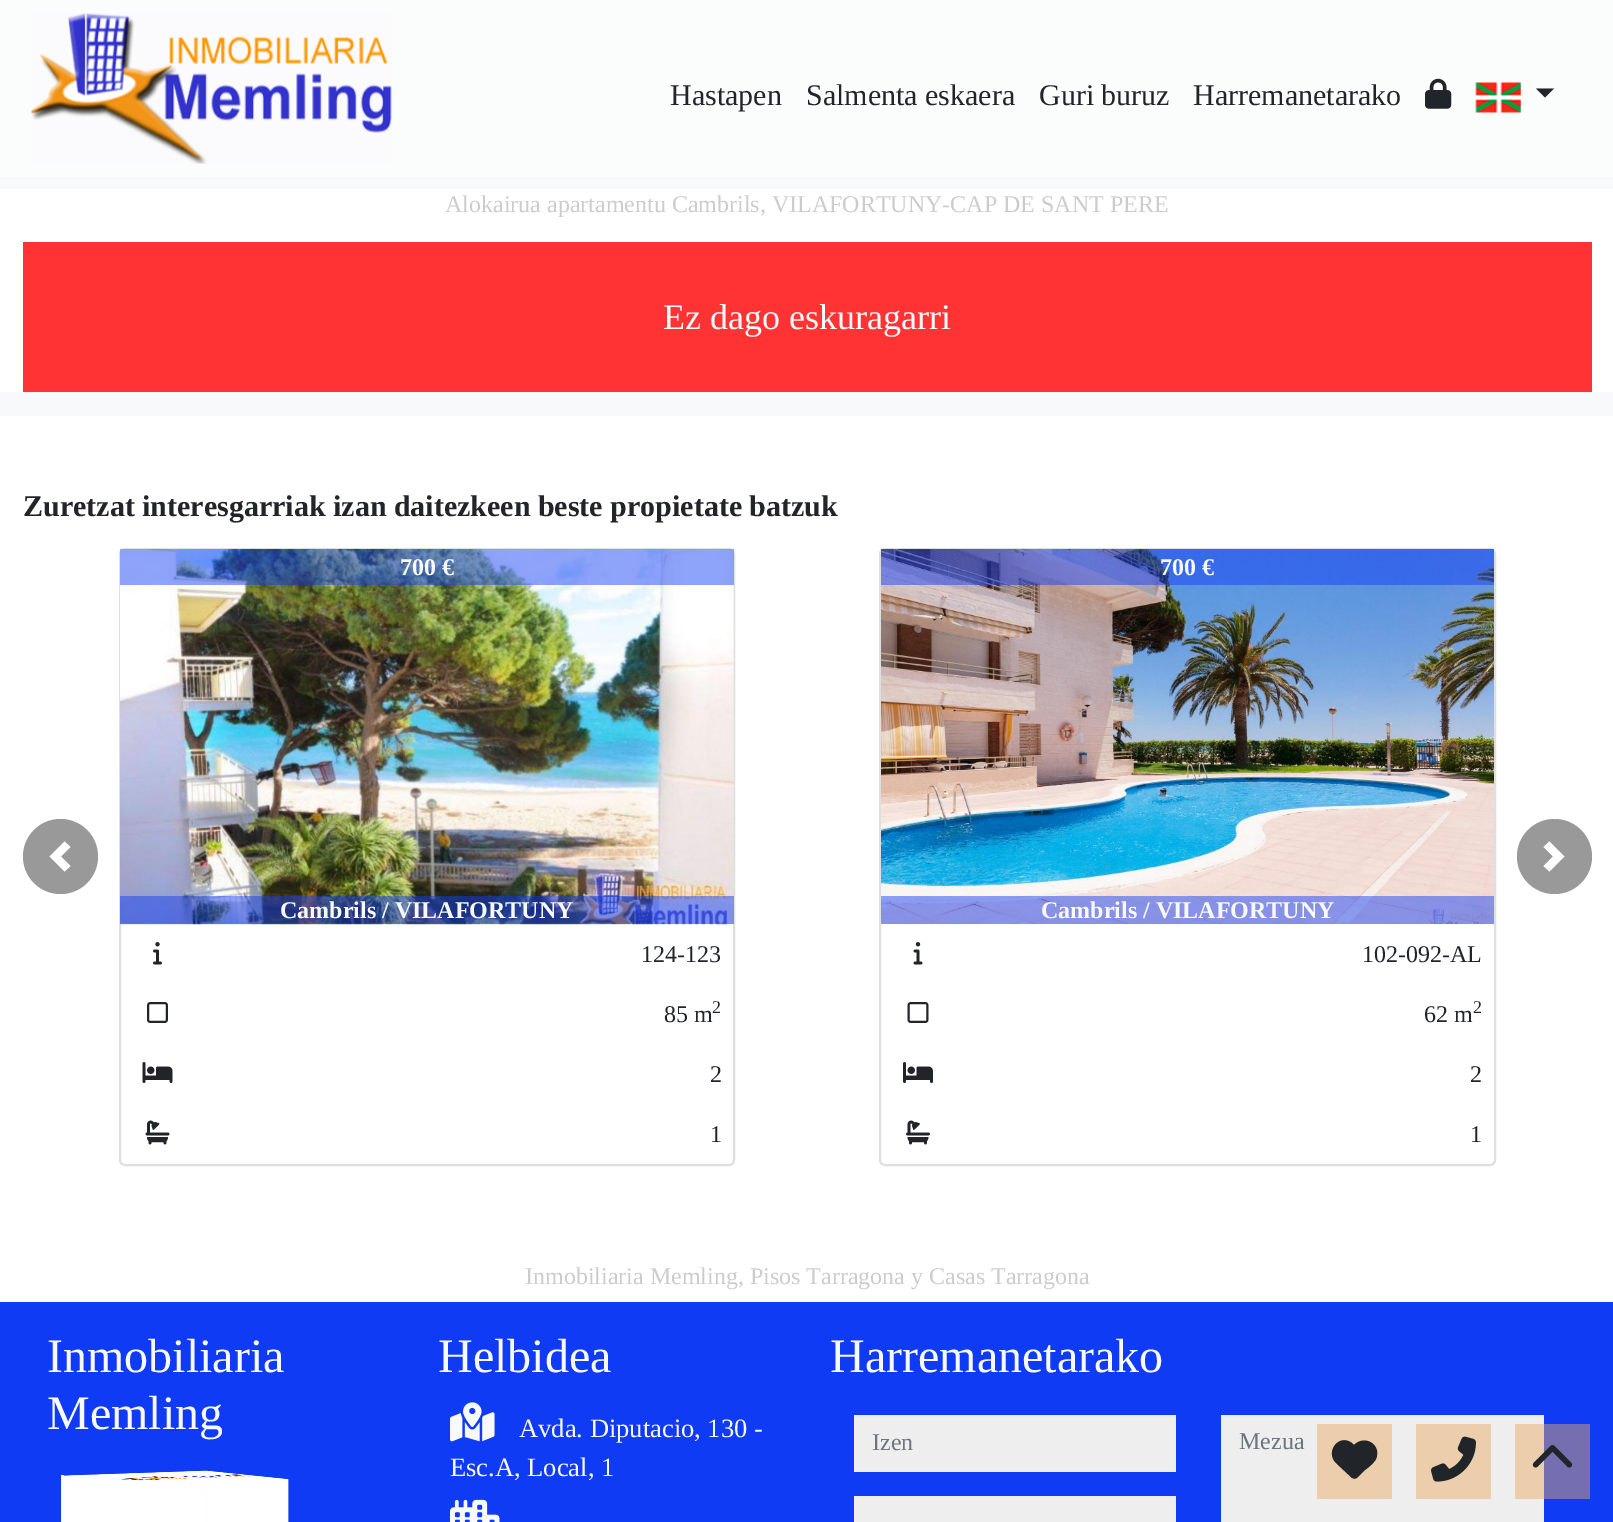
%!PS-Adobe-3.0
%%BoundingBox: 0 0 1613 1522
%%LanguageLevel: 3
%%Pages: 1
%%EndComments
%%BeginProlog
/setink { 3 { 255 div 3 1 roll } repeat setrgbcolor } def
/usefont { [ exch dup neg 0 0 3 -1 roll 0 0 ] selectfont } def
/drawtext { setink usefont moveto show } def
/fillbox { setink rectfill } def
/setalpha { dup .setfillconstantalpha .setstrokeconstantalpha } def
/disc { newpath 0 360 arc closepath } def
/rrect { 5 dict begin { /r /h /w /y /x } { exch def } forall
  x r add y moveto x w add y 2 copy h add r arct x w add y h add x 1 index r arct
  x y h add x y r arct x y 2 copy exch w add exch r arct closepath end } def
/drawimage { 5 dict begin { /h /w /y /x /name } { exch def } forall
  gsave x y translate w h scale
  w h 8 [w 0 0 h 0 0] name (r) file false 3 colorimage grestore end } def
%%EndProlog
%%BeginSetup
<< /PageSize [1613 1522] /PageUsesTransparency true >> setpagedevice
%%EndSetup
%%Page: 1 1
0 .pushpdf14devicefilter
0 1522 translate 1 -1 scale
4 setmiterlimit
0 0 1613 1522 255 255 255 fillbox
0 0 1613 177 251 252 252 fillbox
(assets/img1.rgb) 31 13 361 151 drawimage
(Hastapen) 670 105 /LiberationSerif-Regular 30 33 37 41 drawtext
(Salmenta eskaera) 806 105 /LiberationSerif-Regular 30 33 37 41 drawtext
(Guri buruz) 1039 105 /LiberationSerif-Regular 30 33 37 41 drawtext
(Harremanetarako) 1193 105 /LiberationSerif-Regular 30 33 37 41 drawtext
(assets/img2.rgb) 1425 78 27 31 drawimage
(assets/img3.rgb) 1475 82 46 31 drawimage
1536 88.5 moveto 1554 88.5 lineto 1545 97.5 lineto closepath fill
0 177 1613 239 248 249 250 fillbox
0 189 1613 203 255 255 255 fillbox
(Alokairua apartamentu Cambrils, VILAFORTUNY-CAP DE SANT PERE) 445 212 /LiberationSerif-Regular 24 204 204 204 drawtext
23 242 1569 150 255 51 51 fillbox
(Ez dago eskuragarri) 663 329 /LiberationSerif-Regular 36 248 249 250 drawtext
(Zuretzat interesgarriak izan daitezkeen beste propietate batzuk) 23 516 /LiberationSerif-Bold 30 33 37 41 drawtext
153 153 153 setink
60.5 856.5 37.5 disc fill
255 255 255 setink
64.5 841.5 moveto 49.5 856.5 lineto 64.5 871.5 lineto 70.5 866 lineto 61 856.5 lineto 70.5 847 lineto closepath fill
223 223 223 setink
2 setlinewidth
120 549 614 616 5 rrect stroke
(assets/img4.rgb) 120 549 614 376 drawimage
0.47 setalpha
120 549 614 36 15 59 245 fillbox
1 setalpha
(700 €) 400 575 /LiberationSerif-Bold 24 248 249 250 drawtext
0.47 setalpha
120 896 614 28 15 59 245 fillbox
1 setalpha
(Cambrils / VILAFORTUNY) 280 918 /LiberationSerif-Bold 24 248 249 250 drawtext
(assets/img5.rgb) 153 942 9 23 drawimage
(124-123) 641 962 /LiberationSerif-Regular 24 33 37 41 drawtext
(assets/img6.rgb) 147 1002 21 21 drawimage
(85 m) 664 1022 /LiberationSerif-Regular 24 33 37 41 drawtext
(2) 712 1013 /LiberationSerif-Regular 18 33 37 41 drawtext
(assets/img7.rgb) 142 1062 31 21 drawimage
(2) 710 1082 /LiberationSerif-Regular 24 33 37 41 drawtext
(assets/img8.rgb) 145 1120 25 25 drawimage
(1) 710 1142 /LiberationSerif-Regular 24 33 37 41 drawtext
223 223 223 setink
880 549 615 616 5 rrect stroke
(assets/img9.rgb) 881 549 613 376 drawimage
0.47 setalpha
881 549 613 36 15 59 245 fillbox
1 setalpha
(700 €) 1160 575 /LiberationSerif-Bold 24 248 249 250 drawtext
0.47 setalpha
881 896 613 28 15 59 245 fillbox
1 setalpha
(Cambrils / VILAFORTUNY) 1041 918 /LiberationSerif-Bold 24 248 249 250 drawtext
(assets/img10.rgb) 913 942 10 23 drawimage
(102-092-AL) 1362 962 /LiberationSerif-Regular 24 33 37 41 drawtext
(assets/img11.rgb) 907 1002 22 21 drawimage
(62 m) 1424 1022 /LiberationSerif-Regular 24 33 37 41 drawtext
(2) 1473 1013 /LiberationSerif-Regular 18 33 37 41 drawtext
(assets/img12.rgb) 903 1062 30 21 drawimage
(2) 1470 1082 /LiberationSerif-Regular 24 33 37 41 drawtext
(assets/img13.rgb) 906 1120 24 25 drawimage
(1) 1470 1142 /LiberationSerif-Regular 24 33 37 41 drawtext
153 153 153 setink
1554.5 856.5 37.5 disc fill
255 255 255 setink
1549.5 841.5 moveto 1543.5 847 lineto 1553 856.5 lineto 1543.5 866 lineto 1549.5 871.5 lineto 1564.5 856.5 lineto closepath fill
(Inmobiliaria Memling, Pisos Tarragona y Casas Tarragona) 525 1284 /LiberationSerif-Regular 24 204 204 204 drawtext
0 1302 1613 220 15 59 245 fillbox
1544 1424 46 75 117 110 175 fillbox
(Inmobiliaria) 47 1372 /LiberationSerif-Regular 48 248 249 250 drawtext
(Memling) 47 1429 /LiberationSerif-Regular 48 248 249 250 drawtext
(assets/img14.rgb) 64 1470 143 52 drawimage
(assets/img17.rgb) 206 1479 83 43 drawimage
(assets/img15.rgb) 206 1470 83 52 drawimage
61 1475 3 47 255 255 255 fillbox
(assets/img16.rgb) 68 1471 215 11 drawimage
(Helbidea) 438 1372 /LiberationSerif-Regular 48 248 249 250 drawtext
(assets/img18.rgb) 450 1402 45 40 drawimage
(Avda. Diputacio, 130 -) 519 1437 /LiberationSerif-Regular 26.5 248 249 250 drawtext
(Esc.A, Local, 1) 450 1476 /LiberationSerif-Regular 26.5 248 249 250 drawtext
(assets/img19.rgb) 450 1499 50 23 drawimage
(Harremanetarako) 830 1372 /LiberationSerif-Regular 48 248 249 250 drawtext
854 1415 322 57 238 238 238 fillbox
(Izen) 872 1450 /LiberationSerif-Regular 24 108 117 125 drawtext
854 1496 322 26 238 238 238 fillbox
1221 1415 323 107 238 238 238 fillbox
1515 1424 29 75 236 205 172 fillbox
(Mezua) 1239 1449 /LiberationSerif-Regular 24 108 117 125 drawtext
1317 1424 75 75 236 205 172 fillbox
33 37 41 setink
1336 1463 moveto 1352 1478 lineto 1336 1463 lineto 1349 1475 lineto 1354 1480 1355 1480 1360 1475 curveto 1365 1470 lineto 1369 1467 1374 1463 1376 1459 curveto 1382 1445 1365 1434 1354 1445 curveto 1341 1431 1324 1451 1336 1463 curveto closepath fill
1416 1424 75 75 236 205 172 fillbox
(assets/img20.rgb) 1431 1436 45 46 drawimage
(assets/img21.rgb) 1532 1445 41 23 drawimage
.poppdf14devicefilter showpage
%%EOF
